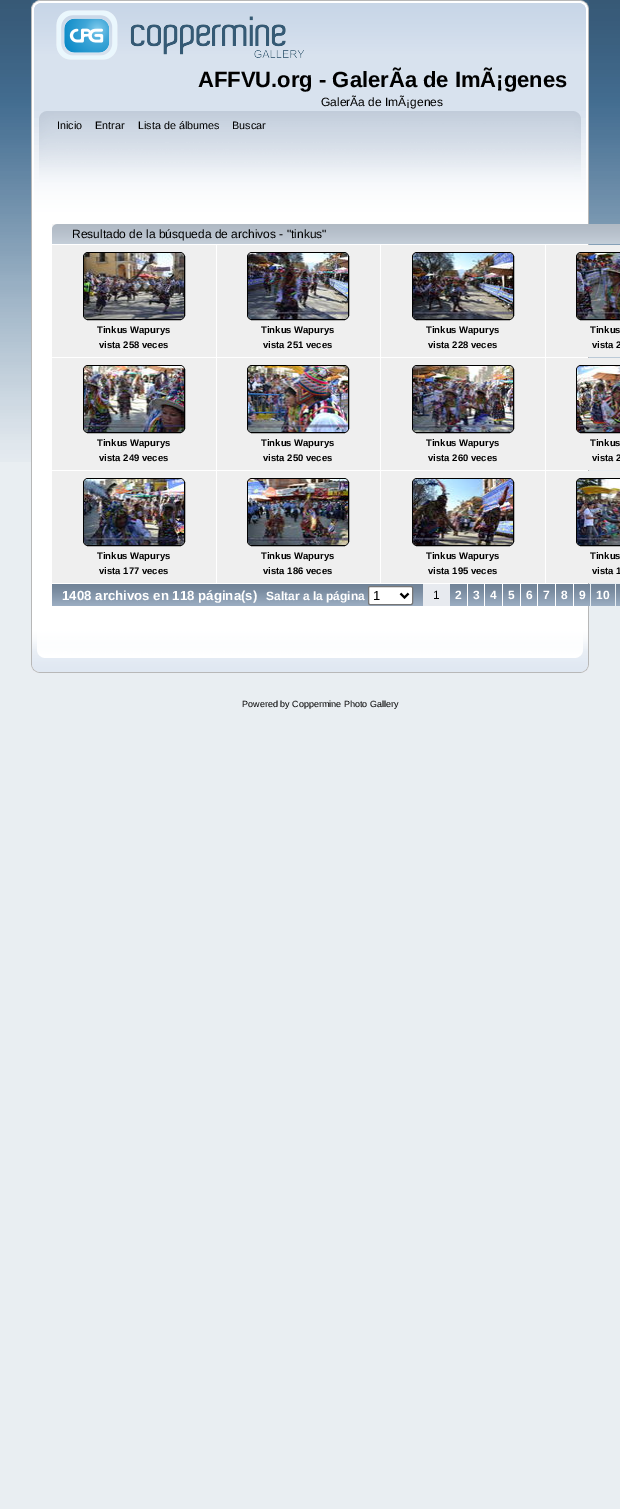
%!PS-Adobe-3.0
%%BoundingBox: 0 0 620 1509
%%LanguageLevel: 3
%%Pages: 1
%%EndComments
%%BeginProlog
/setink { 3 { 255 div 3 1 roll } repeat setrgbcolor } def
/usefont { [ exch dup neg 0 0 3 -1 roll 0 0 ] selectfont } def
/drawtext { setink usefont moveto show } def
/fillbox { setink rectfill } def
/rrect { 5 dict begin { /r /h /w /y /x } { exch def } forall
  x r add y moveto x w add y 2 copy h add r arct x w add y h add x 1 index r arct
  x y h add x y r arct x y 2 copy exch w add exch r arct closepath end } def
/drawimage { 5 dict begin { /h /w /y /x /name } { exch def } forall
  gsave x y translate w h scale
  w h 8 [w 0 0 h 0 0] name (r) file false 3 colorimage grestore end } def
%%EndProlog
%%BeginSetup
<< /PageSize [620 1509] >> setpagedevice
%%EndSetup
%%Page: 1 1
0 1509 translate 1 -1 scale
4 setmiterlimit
0 0 620 1509 233 238 242 fillbox
(assets/img1.rgb) 0 0 620 462 drawimage
(assets/img2.rgb) 31 0 550 111 drawimage
(assets/img3.rgb) 581 0 8 111 drawimage
(assets/img4.rgb) 56 10 248 50 drawimage
(AFFVU.org - GalerÃa de ImÃ¡genes) 198 87 /LiberationSans-Bold 22 0 0 0 drawtext
(GalerÃa de ImÃ¡genes) 321 106 /LiberationSans-Regular 12 0 0 0 drawtext
(assets/img5.rgb) 31 111 543 110 drawimage
(assets/img6.rgb) 574 111 15 110 drawimage
(Inicio) 57 129 /LiberationSans-Regular 10.75 0 0 0 drawtext
(Entrar) 95 129 /LiberationSans-Regular 10.75 0 0 0 drawtext
(Lista de álbumes) 138 129 /LiberationSans-Regular 10.75 0 0 0 drawtext
(Buscar) 232 129 /LiberationSans-Regular 10.75 0 0 0 drawtext
32 221 556 408 255 255 255 fillbox
31 221 1 408 183 183 183 fillbox
588 221 1 408 183 183 183 fillbox
(assets/img7.rgb) 52 224 568 20 drawimage
(Resultado de la búsqueda de archivos - "tinkus") 72 238 /LiberationSans-Regular 12 0 0 0 drawtext
52 245 164 112 239 239 239 fillbox
0 0 0 setink
83.5 252.5 101 67 4.5 rrect stroke
(assets/img8.rgb) 84 253 100 66 drawimage
(Tinkus Wapurys) 97 333 /LiberationSans-Bold 9.5 0 0 0 drawtext
(vista 258 veces) 99 348 /LiberationSans-Bold 9.5 0 0 0 drawtext
217 245 163 112 239 239 239 fillbox
0 0 0 setink
247.5 252.5 101 67 4.5 rrect stroke
(assets/img9.rgb) 248 253 100 66 drawimage
(Tinkus Wapurys) 261 333 /LiberationSans-Bold 9.5 0 0 0 drawtext
(vista 251 veces) 263 348 /LiberationSans-Bold 9.5 0 0 0 drawtext
381 245 164 112 239 239 239 fillbox
0 0 0 setink
412.5 252.5 101 67 4.5 rrect stroke
(assets/img10.rgb) 413 253 100 66 drawimage
(Tinkus Wapurys) 426 333 /LiberationSans-Bold 9.5 0 0 0 drawtext
(vista 228 veces) 428 348 /LiberationSans-Bold 9.5 0 0 0 drawtext
546 245 74 112 239 239 239 fillbox
0 0 0 setink
576.5 252.5 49 67 4.5 rrect stroke
(assets/img11.rgb) 577 253 43 66 drawimage
(Tinkus) 590 333 /LiberationSans-Bold 9.5 0 0 0 drawtext
(vista 2) 592 348 /LiberationSans-Bold 9.5 0 0 0 drawtext
52 358 164 112 239 239 239 fillbox
0 0 0 setink
83.5 365.5 101 67 4.5 rrect stroke
(assets/img12.rgb) 84 366 100 66 drawimage
(Tinkus Wapurys) 97 446 /LiberationSans-Bold 9.5 0 0 0 drawtext
(vista 249 veces) 99 461 /LiberationSans-Bold 9.5 0 0 0 drawtext
217 358 163 112 239 239 239 fillbox
0 0 0 setink
247.5 365.5 101 67 4.5 rrect stroke
(assets/img13.rgb) 248 366 100 66 drawimage
(Tinkus Wapurys) 261 446 /LiberationSans-Bold 9.5 0 0 0 drawtext
(vista 250 veces) 263 461 /LiberationSans-Bold 9.5 0 0 0 drawtext
381 358 164 112 239 239 239 fillbox
0 0 0 setink
412.5 365.5 101 67 4.5 rrect stroke
(assets/img14.rgb) 413 366 100 66 drawimage
(Tinkus Wapurys) 426 446 /LiberationSans-Bold 9.5 0 0 0 drawtext
(vista 260 veces) 428 461 /LiberationSans-Bold 9.5 0 0 0 drawtext
546 358 74 112 239 239 239 fillbox
0 0 0 setink
576.5 365.5 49 67 4.5 rrect stroke
(assets/img15.rgb) 577 366 43 66 drawimage
(Tinkus) 590 446 /LiberationSans-Bold 9.5 0 0 0 drawtext
(vista 2) 592 461 /LiberationSans-Bold 9.5 0 0 0 drawtext
52 471 164 112 239 239 239 fillbox
0 0 0 setink
83.5 478.5 101 67 4.5 rrect stroke
(assets/img16.rgb) 84 479 100 66 drawimage
(Tinkus Wapurys) 97 559 /LiberationSans-Bold 9.5 0 0 0 drawtext
(vista 177 veces) 99 574 /LiberationSans-Bold 9.5 0 0 0 drawtext
217 471 163 112 239 239 239 fillbox
0 0 0 setink
247.5 478.5 101 67 4.5 rrect stroke
(assets/img17.rgb) 248 479 100 66 drawimage
(Tinkus Wapurys) 261 559 /LiberationSans-Bold 9.5 0 0 0 drawtext
(vista 186 veces) 263 574 /LiberationSans-Bold 9.5 0 0 0 drawtext
381 471 164 112 239 239 239 fillbox
0 0 0 setink
412.5 478.5 101 67 4.5 rrect stroke
(assets/img18.rgb) 413 479 100 66 drawimage
(Tinkus Wapurys) 426 559 /LiberationSans-Bold 9.5 0 0 0 drawtext
(vista 195 veces) 428 574 /LiberationSans-Bold 9.5 0 0 0 drawtext
546 471 74 112 239 239 239 fillbox
0 0 0 setink
576.5 478.5 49 67 4.5 rrect stroke
(assets/img19.rgb) 577 479 43 66 drawimage
(Tinkus) 590 559 /LiberationSans-Bold 9.5 0 0 0 drawtext
(vista 1) 592 574 /LiberationSans-Bold 9.5 0 0 0 drawtext
(assets/img20.rgb) 52 584 214 22 drawimage
(1408 archivos en 118 página\(s\)) 62 600 /LiberationSans-Bold 13.25 255 255 255 drawtext
(assets/img21.rgb) 266 584 157 22 drawimage
(Saltar a la página) 266 600 /LiberationSans-Bold 12 255 255 255 drawtext
368.5 586.5 44 18 1.5 rrect gsave fill grestore
118 118 118 setink
stroke
0 0 0 setink
2 setlinewidth
400.5 593.5 moveto 404.5 597.5 lineto 408.5 593.5 lineto stroke
(1) 373 600 /LiberationSans-Regular 13 0 0 0 drawtext
423 584 27 22 231 234 239 fillbox
(1) 433 599 /LiberationSans-Regular 12 0 0 0 drawtext
(assets/img22.rgb) 450 584 17 22 drawimage
(2) 455 599 /LiberationSans-Bold 12 255 255 255 drawtext
(assets/img23.rgb) 468 584 16 22 drawimage
(3) 473 599 /LiberationSans-Bold 12 255 255 255 drawtext
(assets/img22.rgb) 485 584 17 22 drawimage
(4) 490 599 /LiberationSans-Bold 12 255 255 255 drawtext
(assets/img22.rgb) 503 584 17 22 drawimage
(5) 508 599 /LiberationSans-Bold 12 255 255 255 drawtext
(assets/img23.rgb) 521 584 16 22 drawimage
(6) 526 599 /LiberationSans-Bold 12 255 255 255 drawtext
(assets/img22.rgb) 538 584 17 22 drawimage
(7) 543 599 /LiberationSans-Bold 12 255 255 255 drawtext
(assets/img22.rgb) 556 584 17 22 drawimage
(8) 561 599 /LiberationSans-Bold 12 255 255 255 drawtext
(assets/img23.rgb) 574 584 16 22 drawimage
(9) 579 599 /LiberationSans-Bold 12 255 255 255 drawtext
(assets/img24.rgb) 591 584 24 22 drawimage
(10) 596 599 /LiberationSans-Bold 12 255 255 255 drawtext
(assets/img25.rgb) 616 584 4 22 drawimage
(assets/img26.rgb) 31 629 545 44 drawimage
(assets/img27.rgb) 576 629 13 44 drawimage
(Powered by Coppermine Photo Gallery) 242 707 /LiberationSans-Regular 9 0 0 0 drawtext
showpage
%%EOF
